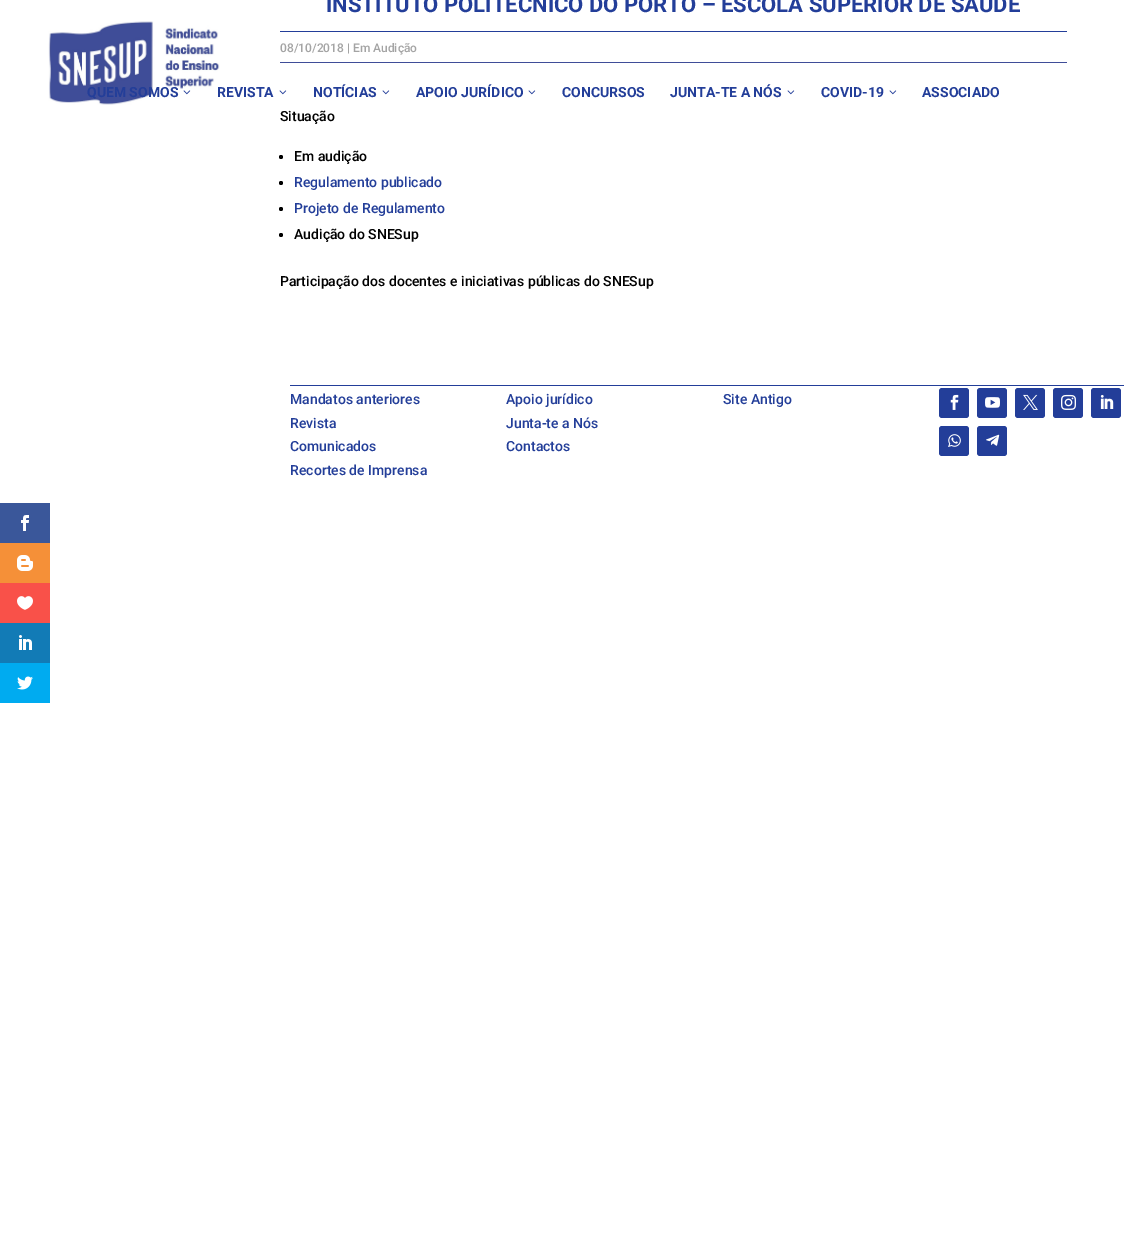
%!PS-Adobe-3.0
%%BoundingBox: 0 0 1124 1238
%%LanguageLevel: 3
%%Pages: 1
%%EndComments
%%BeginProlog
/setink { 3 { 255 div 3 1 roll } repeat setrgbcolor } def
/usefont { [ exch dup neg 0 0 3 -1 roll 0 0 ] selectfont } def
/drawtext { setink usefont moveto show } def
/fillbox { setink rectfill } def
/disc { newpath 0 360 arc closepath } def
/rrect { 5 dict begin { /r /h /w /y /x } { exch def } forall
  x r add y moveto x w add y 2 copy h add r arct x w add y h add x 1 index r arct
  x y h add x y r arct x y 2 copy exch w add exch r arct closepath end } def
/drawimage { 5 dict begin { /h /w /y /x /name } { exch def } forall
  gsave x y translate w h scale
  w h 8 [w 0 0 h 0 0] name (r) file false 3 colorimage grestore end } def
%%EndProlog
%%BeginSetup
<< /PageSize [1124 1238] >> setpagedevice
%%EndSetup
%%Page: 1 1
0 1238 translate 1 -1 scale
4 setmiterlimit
0 0 1124 1238 255 255 255 fillbox
(INSTITUTO POLITÉCNICO DO PORTO – ESCOLA SUPERIOR DE SAÚDE) 326 12 /Roboto-Bold 22 35 62 153 drawtext
280 31 787 1 35 62 153 fillbox
(08/10/2018 | Em Audição) 280 52 /Roboto-Medium 12 164 164 164 drawtext
280 62 787 1 63 77 152 fillbox
(Situação) 280 121 /Roboto-Medium 14 0 0 0 drawtext
281 157 2 disc fill
(Em audição) 294 161 /Roboto-Medium 14 0 0 0 drawtext
281 183 2 disc fill
(Regulamento publicado) 294 187 /Roboto-Medium 14 35 62 153 drawtext
0 0 0 setink
281 209 2 disc fill
(Projeto de Regulamento) 294 213 /Roboto-Medium 14 35 62 153 drawtext
0 0 0 setink
281 235 2 disc fill
(Audição do SNESup) 294 239 /Roboto-Medium 14 0 0 0 drawtext
(Participação dos docentes e iniciativas públicas do SNESup) 280 286 /Roboto-Medium 14 0 0 0 drawtext
290 385 834 1 35 62 153 fillbox
(Mandatos anteriores) 290 404 /Roboto-Medium 14 35 62 153 drawtext
(Revista) 290 428 /Roboto-Medium 14 35 62 153 drawtext
(Comunicados) 290 451 /Roboto-Medium 14 35 62 153 drawtext
(Recortes de Imprensa) 290 475 /Roboto-Medium 14 35 62 153 drawtext
(Apoio jurídico) 506 404 /Roboto-Medium 14 35 62 153 drawtext
(Junta-te a Nós) 506 428 /Roboto-Medium 14 35 62 153 drawtext
(Contactos) 506 451 /Roboto-Medium 14 35 62 153 drawtext
(Site Antigo) 723 404 /Roboto-Medium 14 35 62 153 drawtext
939 388 30 30 3 rrect fill
(assets/img1.rgb) 950 394 9 16 drawimage
977 388 30 30 3 rrect fill
(assets/img2.rgb) 985 397 15 11 drawimage
1015 388 30 30 3 rrect fill
(assets/img3.rgb) 1023 394 15 16 drawimage
1053 388 30 30 3 rrect fill
(assets/img4.rgb) 1061 394 15 16 drawimage
1091 388 30 30 3 rrect fill
(assets/img5.rgb) 1100 394 14 15 drawimage
939 426 30 30 3 rrect fill
(assets/img6.rgb) 948 434 13 13 drawimage
977 426 30 30 3 rrect fill
(assets/img7.rgb) 986 434 14 12 drawimage
(assets/img8.rgb) 48 21 172 84 drawimage
(QUEM SOMOS) 87 97 /Roboto-Bold 14 35 62 153 drawtext
(assets/img9.rgb) 183 90 8 5 drawimage
(REVISTA) 217 97 /Roboto-Bold 14 35 62 153 drawtext
(assets/img10.rgb) 279 90 8 5 drawimage
(NOTÍCIAS) 313 97 /Roboto-Bold 14 35 62 153 drawtext
(assets/img10.rgb) 382 90 8 5 drawimage
(APOIO JURÍDICO) 416 97 /Roboto-Bold 14 35 62 153 drawtext
(assets/img10.rgb) 528 90 8 5 drawimage
(CONCURSOS) 562 97 /Roboto-Bold 14 35 62 153 drawtext
(JUNTA-TE A NÓS) 670 97 /Roboto-Bold 14 35 62 153 drawtext
(assets/img10.rgb) 787 90 8 5 drawimage
(COVID-19) 821 97 /Roboto-Bold 14 35 62 153 drawtext
(assets/img10.rgb) 889 90 8 5 drawimage
(ASSOCIADO) 922 97 /Roboto-Bold 14 35 62 153 drawtext
0 503 50 40 58 87 154 fillbox
(assets/img11.rgb) 21 515 8 16 drawimage
0 543 50 40 245 144 56 fillbox
(assets/img12.rgb) 17 555 16 16 drawimage
0 583 50 40 249 81 73 fillbox
(assets/img13.rgb) 17 596 16 14 drawimage
0 623 50 40 18 123 182 fillbox
(assets/img14.rgb) 19 635 13 15 drawimage
0 663 50 40 0 171 240 fillbox
(assets/img15.rgb) 17 676 16 14 drawimage
showpage
%%EOF
